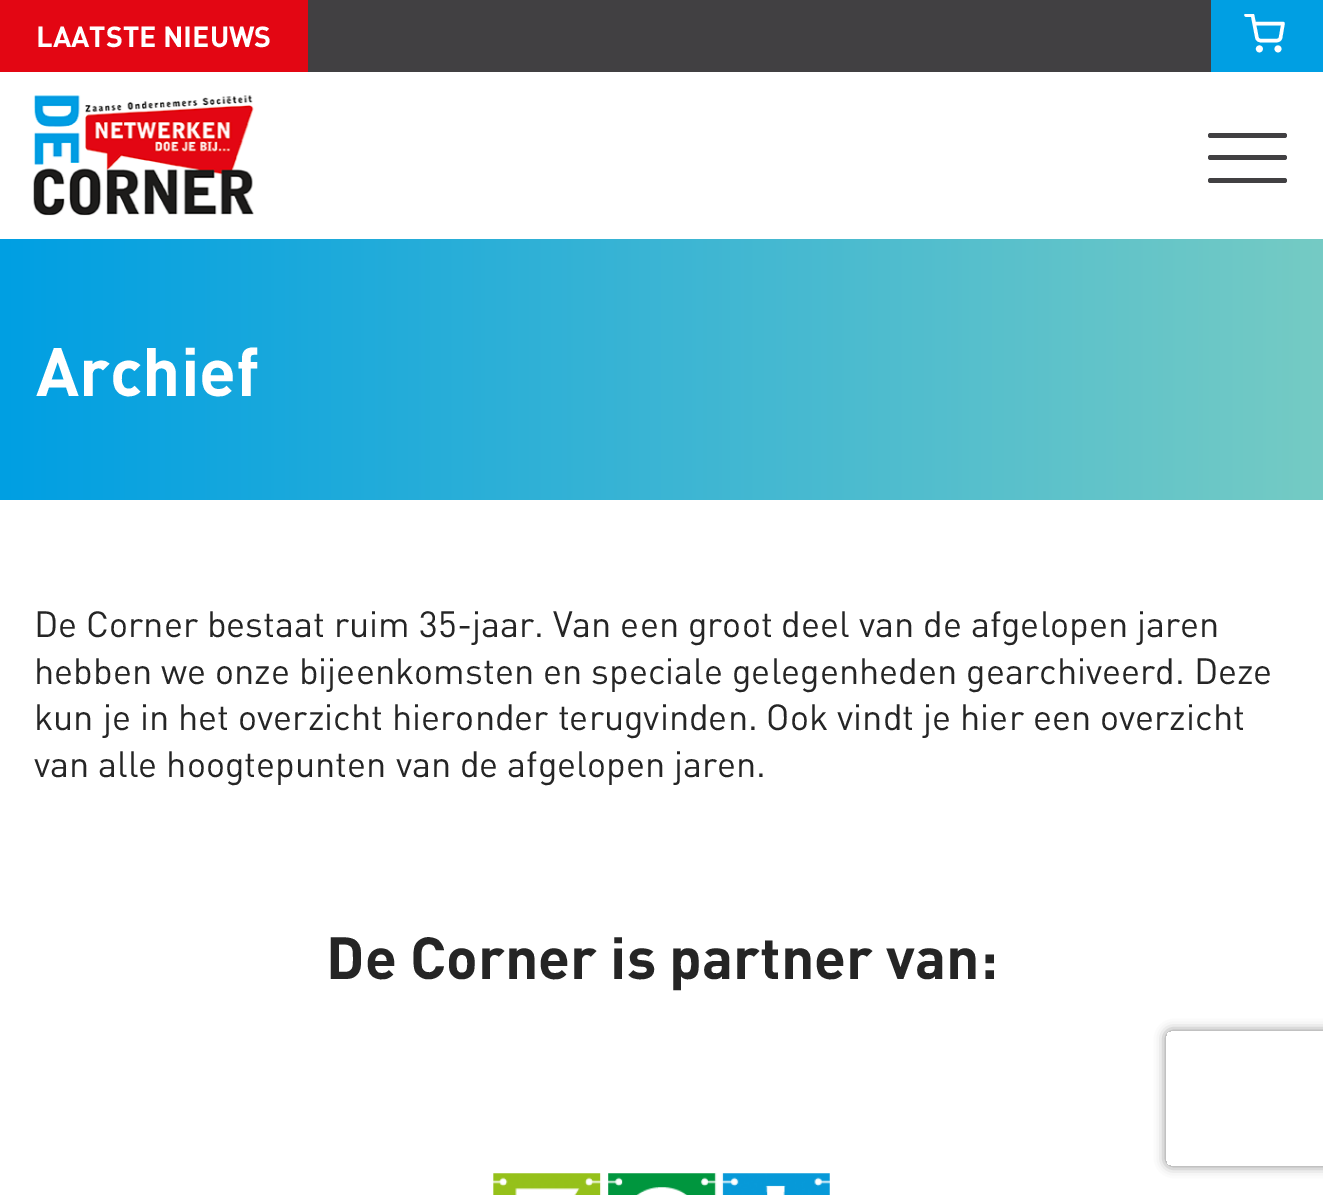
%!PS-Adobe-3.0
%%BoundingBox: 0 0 1323 1195
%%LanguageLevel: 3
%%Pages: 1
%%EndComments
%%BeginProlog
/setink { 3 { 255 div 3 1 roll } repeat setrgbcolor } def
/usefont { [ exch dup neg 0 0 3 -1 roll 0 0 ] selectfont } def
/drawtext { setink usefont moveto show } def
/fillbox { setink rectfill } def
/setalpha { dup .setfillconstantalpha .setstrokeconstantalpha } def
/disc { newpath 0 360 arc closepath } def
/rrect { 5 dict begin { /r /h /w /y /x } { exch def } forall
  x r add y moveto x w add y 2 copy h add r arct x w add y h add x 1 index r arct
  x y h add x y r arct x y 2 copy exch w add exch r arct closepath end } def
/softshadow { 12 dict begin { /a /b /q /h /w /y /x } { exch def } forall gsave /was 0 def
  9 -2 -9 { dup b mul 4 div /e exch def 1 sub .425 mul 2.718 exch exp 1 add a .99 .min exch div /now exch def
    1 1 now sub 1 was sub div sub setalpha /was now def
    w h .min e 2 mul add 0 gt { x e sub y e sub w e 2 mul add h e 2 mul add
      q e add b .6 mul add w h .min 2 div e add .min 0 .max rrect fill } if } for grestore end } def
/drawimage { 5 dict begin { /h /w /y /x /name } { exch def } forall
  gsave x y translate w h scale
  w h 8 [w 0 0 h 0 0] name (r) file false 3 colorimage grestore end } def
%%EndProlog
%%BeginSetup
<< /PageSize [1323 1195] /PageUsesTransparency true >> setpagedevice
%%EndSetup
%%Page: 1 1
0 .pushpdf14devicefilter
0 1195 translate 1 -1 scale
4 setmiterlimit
0 0 1323 1195 255 255 255 fillbox
308 0 903 72 65 64 66 fillbox
0 0 308 72 227 6 19 fillbox
(LAATSTE NIEUWS) 36 47 /DIN-Bold 28.75 255 255 255 drawtext
1211 0 112 72 0 159 227 fillbox
gsave
1244 14 41 40 rectclip
255 255 255 setink
3.4 setlinewidth
1 setlinecap
1 setlinejoin
1246 15 moveto 1252.5 15 lineto 1257 38 lineto 1257.5 39.5 1259 40.5 1260.5 40.5 curveto 1277 40.5 lineto 1278.5 40.5 1280 39.5 1280.5 38 curveto 1283 23.5 lineto 1254.5 23.5 lineto stroke
grestore
255 255 255 setink
3.4 setlinewidth
1259.4 48.9 1.7 disc stroke
1278 48.9 1.7 disc stroke
(assets/img1.rgb) 33 95 221 121 drawimage
65 64 66 setink
1208 155 79 5 2.5 rrect fill
1208 133 79 5 2.5 rrect fill
1208 178 79 5 2.5 rrect fill
gsave 0 239 moveto 1323 239 lineto 1323 500 lineto 0 500 lineto closepath clip newpath
<< /ShadingType 2 /ColorSpace /DeviceRGB /Coords [0 369 1323 369] /Extend [true true] /Function << /FunctionType 2 /Domain [0 1] /C0 [0 0.624 0.89] /C1 [0.459 0.796 0.769] /N 1 >> >> shfill grestore
(Archief) 36 396 /DIN-Bold 67.5 255 255 255 drawtext
(De Corner bestaat ruim 35-jaar. Van een groot deel van de afgelopen jaren) 34 637 /DIN-Regular 36 37 37 37 drawtext
(hebben we onze bijeenkomsten en speciale gelegenheden gearchiveerd. Deze) 34 684 /DIN-Regular 36 37 37 37 drawtext
(kun je in het overzicht hieronder terugvinden. Ook vindt je hier een overzicht) 34 730 /DIN-Regular 36 37 37 37 drawtext
(van alle hoogtepunten van de afgelopen jaren.) 34 777 /DIN-Regular 36 37 37 37 drawtext
(De Corner is partner van:) 326 979 /DIN-Bold 58.5 37 37 37 drawtext
(assets/img2.rgb) 493 1173 337 22 drawimage
gsave
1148 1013 moveto 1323 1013 lineto 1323 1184 lineto 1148 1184 lineto closepath 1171 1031 moveto 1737 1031 lineto 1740 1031 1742 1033 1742 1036 curveto 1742 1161 lineto 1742 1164 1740 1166 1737 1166 curveto 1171 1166 lineto 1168 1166 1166 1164 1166 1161 curveto 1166 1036 lineto 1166 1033 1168 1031 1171 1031 curveto closepath eoclip newpath
128 128 128 setink
1166 1031 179 135 5 5.5 1 softshadow
grestore
.poppdf14devicefilter showpage
%%EOF
